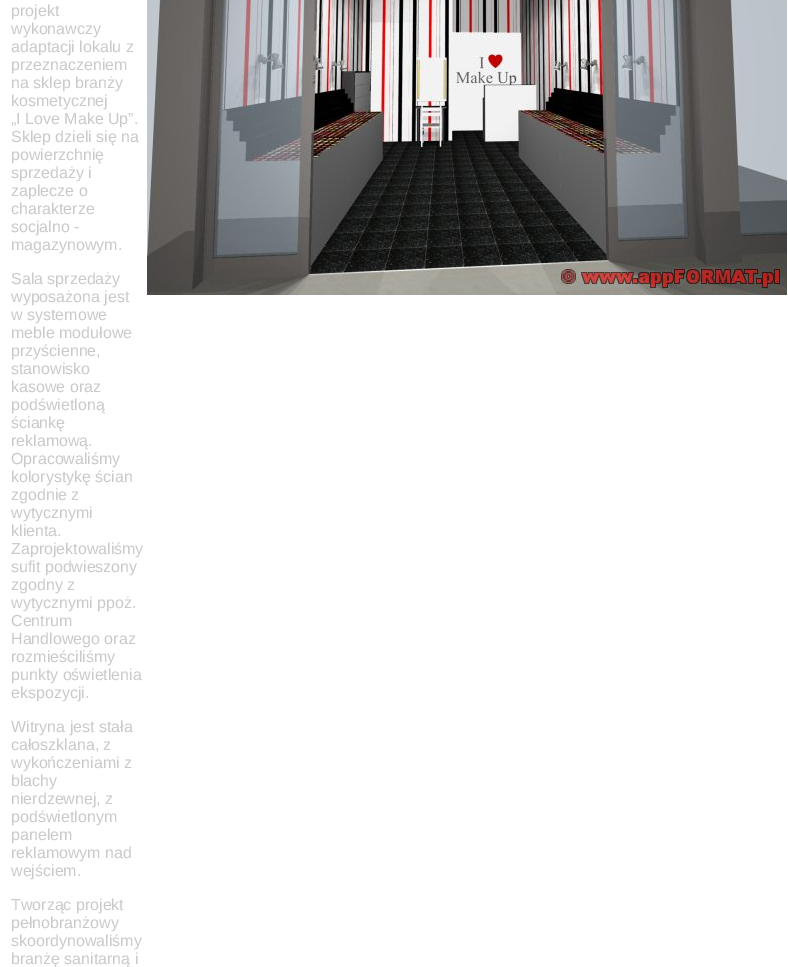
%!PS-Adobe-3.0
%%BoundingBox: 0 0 788 967
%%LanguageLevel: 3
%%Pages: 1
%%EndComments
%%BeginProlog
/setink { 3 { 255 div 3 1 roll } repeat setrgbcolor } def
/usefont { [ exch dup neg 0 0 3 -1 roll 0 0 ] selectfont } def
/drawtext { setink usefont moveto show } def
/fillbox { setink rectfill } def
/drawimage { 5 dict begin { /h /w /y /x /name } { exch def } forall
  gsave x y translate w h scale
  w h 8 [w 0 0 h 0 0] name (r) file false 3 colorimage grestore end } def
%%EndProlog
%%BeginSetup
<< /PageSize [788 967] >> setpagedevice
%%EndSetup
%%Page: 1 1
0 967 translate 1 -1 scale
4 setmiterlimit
0 0 788 967 255 255 255 fillbox
(projekt) 11 16 /LiberationSans-Regular 16 202 202 202 drawtext
(wykonawczy) 11 34 /LiberationSans-Regular 16 202 202 202 drawtext
(adaptacji lokalu z) 11 52 /LiberationSans-Regular 16 202 202 202 drawtext
(przeznaczeniem) 11 70 /LiberationSans-Regular 16 202 202 202 drawtext
(na sklep branży) 11 88 /LiberationSans-Regular 16 202 202 202 drawtext
(kosmetycznej) 11 106 /LiberationSans-Regular 16 202 202 202 drawtext
(„I Love Make Up”.) 11 124 /LiberationSans-Regular 16 202 202 202 drawtext
(Sklep dzieli się na) 11 142 /LiberationSans-Regular 16 202 202 202 drawtext
(powierzchnię) 11 160 /LiberationSans-Regular 16 202 202 202 drawtext
(sprzedaży i) 11 178 /LiberationSans-Regular 16 202 202 202 drawtext
(zaplecze o) 11 196 /LiberationSans-Regular 16 202 202 202 drawtext
(charakterze) 11 214 /LiberationSans-Regular 16 202 202 202 drawtext
(socjalno -) 11 232 /LiberationSans-Regular 16 202 202 202 drawtext
(magazynowym.) 11 250 /LiberationSans-Regular 16 202 202 202 drawtext
(Sala sprzedaży) 11 284 /LiberationSans-Regular 16 202 202 202 drawtext
(wyposażona jest) 11 302 /LiberationSans-Regular 16 202 202 202 drawtext
(w systemowe) 11 320 /LiberationSans-Regular 16 202 202 202 drawtext
(meble modułowe) 11 338 /LiberationSans-Regular 16 202 202 202 drawtext
(przyścienne,) 11 356 /LiberationSans-Regular 16 202 202 202 drawtext
(stanowisko) 11 374 /LiberationSans-Regular 16 202 202 202 drawtext
(kasowe oraz) 11 392 /LiberationSans-Regular 16 202 202 202 drawtext
(podświetloną) 11 410 /LiberationSans-Regular 16 202 202 202 drawtext
(ściankę) 11 428 /LiberationSans-Regular 16 202 202 202 drawtext
(reklamową.) 11 446 /LiberationSans-Regular 16 202 202 202 drawtext
(Opracowaliśmy) 11 464 /LiberationSans-Regular 16 202 202 202 drawtext
(kolorystykę ścian) 11 482 /LiberationSans-Regular 16 202 202 202 drawtext
(zgodnie z) 11 500 /LiberationSans-Regular 16 202 202 202 drawtext
(wytycznymi) 11 518 /LiberationSans-Regular 16 202 202 202 drawtext
(klienta.) 11 536 /LiberationSans-Regular 16 202 202 202 drawtext
(Zaprojektowaliśmy) 11 554 /LiberationSans-Regular 16 202 202 202 drawtext
(sufit podwieszony) 11 572 /LiberationSans-Regular 16 202 202 202 drawtext
(zgodny z) 11 590 /LiberationSans-Regular 16 202 202 202 drawtext
(wytycznymi ppoż.) 11 608 /LiberationSans-Regular 16 202 202 202 drawtext
(Centrum) 11 626 /LiberationSans-Regular 16 202 202 202 drawtext
(Handlowego oraz) 11 644 /LiberationSans-Regular 16 202 202 202 drawtext
(rozmieściliśmy) 11 662 /LiberationSans-Regular 16 202 202 202 drawtext
(punkty oświetlenia) 11 680 /LiberationSans-Regular 16 202 202 202 drawtext
(ekspozycji.) 11 698 /LiberationSans-Regular 16 202 202 202 drawtext
(Witryna jest stała) 11 732 /LiberationSans-Regular 16 202 202 202 drawtext
(całoszklana, z) 11 750 /LiberationSans-Regular 16 202 202 202 drawtext
(wykończeniami z) 11 768 /LiberationSans-Regular 16 202 202 202 drawtext
(blachy) 11 786 /LiberationSans-Regular 16 202 202 202 drawtext
(nierdzewnej, z) 11 804 /LiberationSans-Regular 16 202 202 202 drawtext
(podświetlonym) 11 822 /LiberationSans-Regular 16 202 202 202 drawtext
(panelem) 11 840 /LiberationSans-Regular 16 202 202 202 drawtext
(reklamowym nad) 11 858 /LiberationSans-Regular 16 202 202 202 drawtext
(wejściem.) 11 876 /LiberationSans-Regular 16 202 202 202 drawtext
(Tworząc projekt) 11 910 /LiberationSans-Regular 16 202 202 202 drawtext
(pełnobranżowy) 11 928 /LiberationSans-Regular 16 202 202 202 drawtext
(skoordynowaliśmy) 11 946 /LiberationSans-Regular 16 202 202 202 drawtext
(branżę sanitarną i) 11 964 /LiberationSans-Regular 16 202 202 202 drawtext
(assets/img1.rgb) 147 0 640 295 drawimage
showpage
%%EOF
